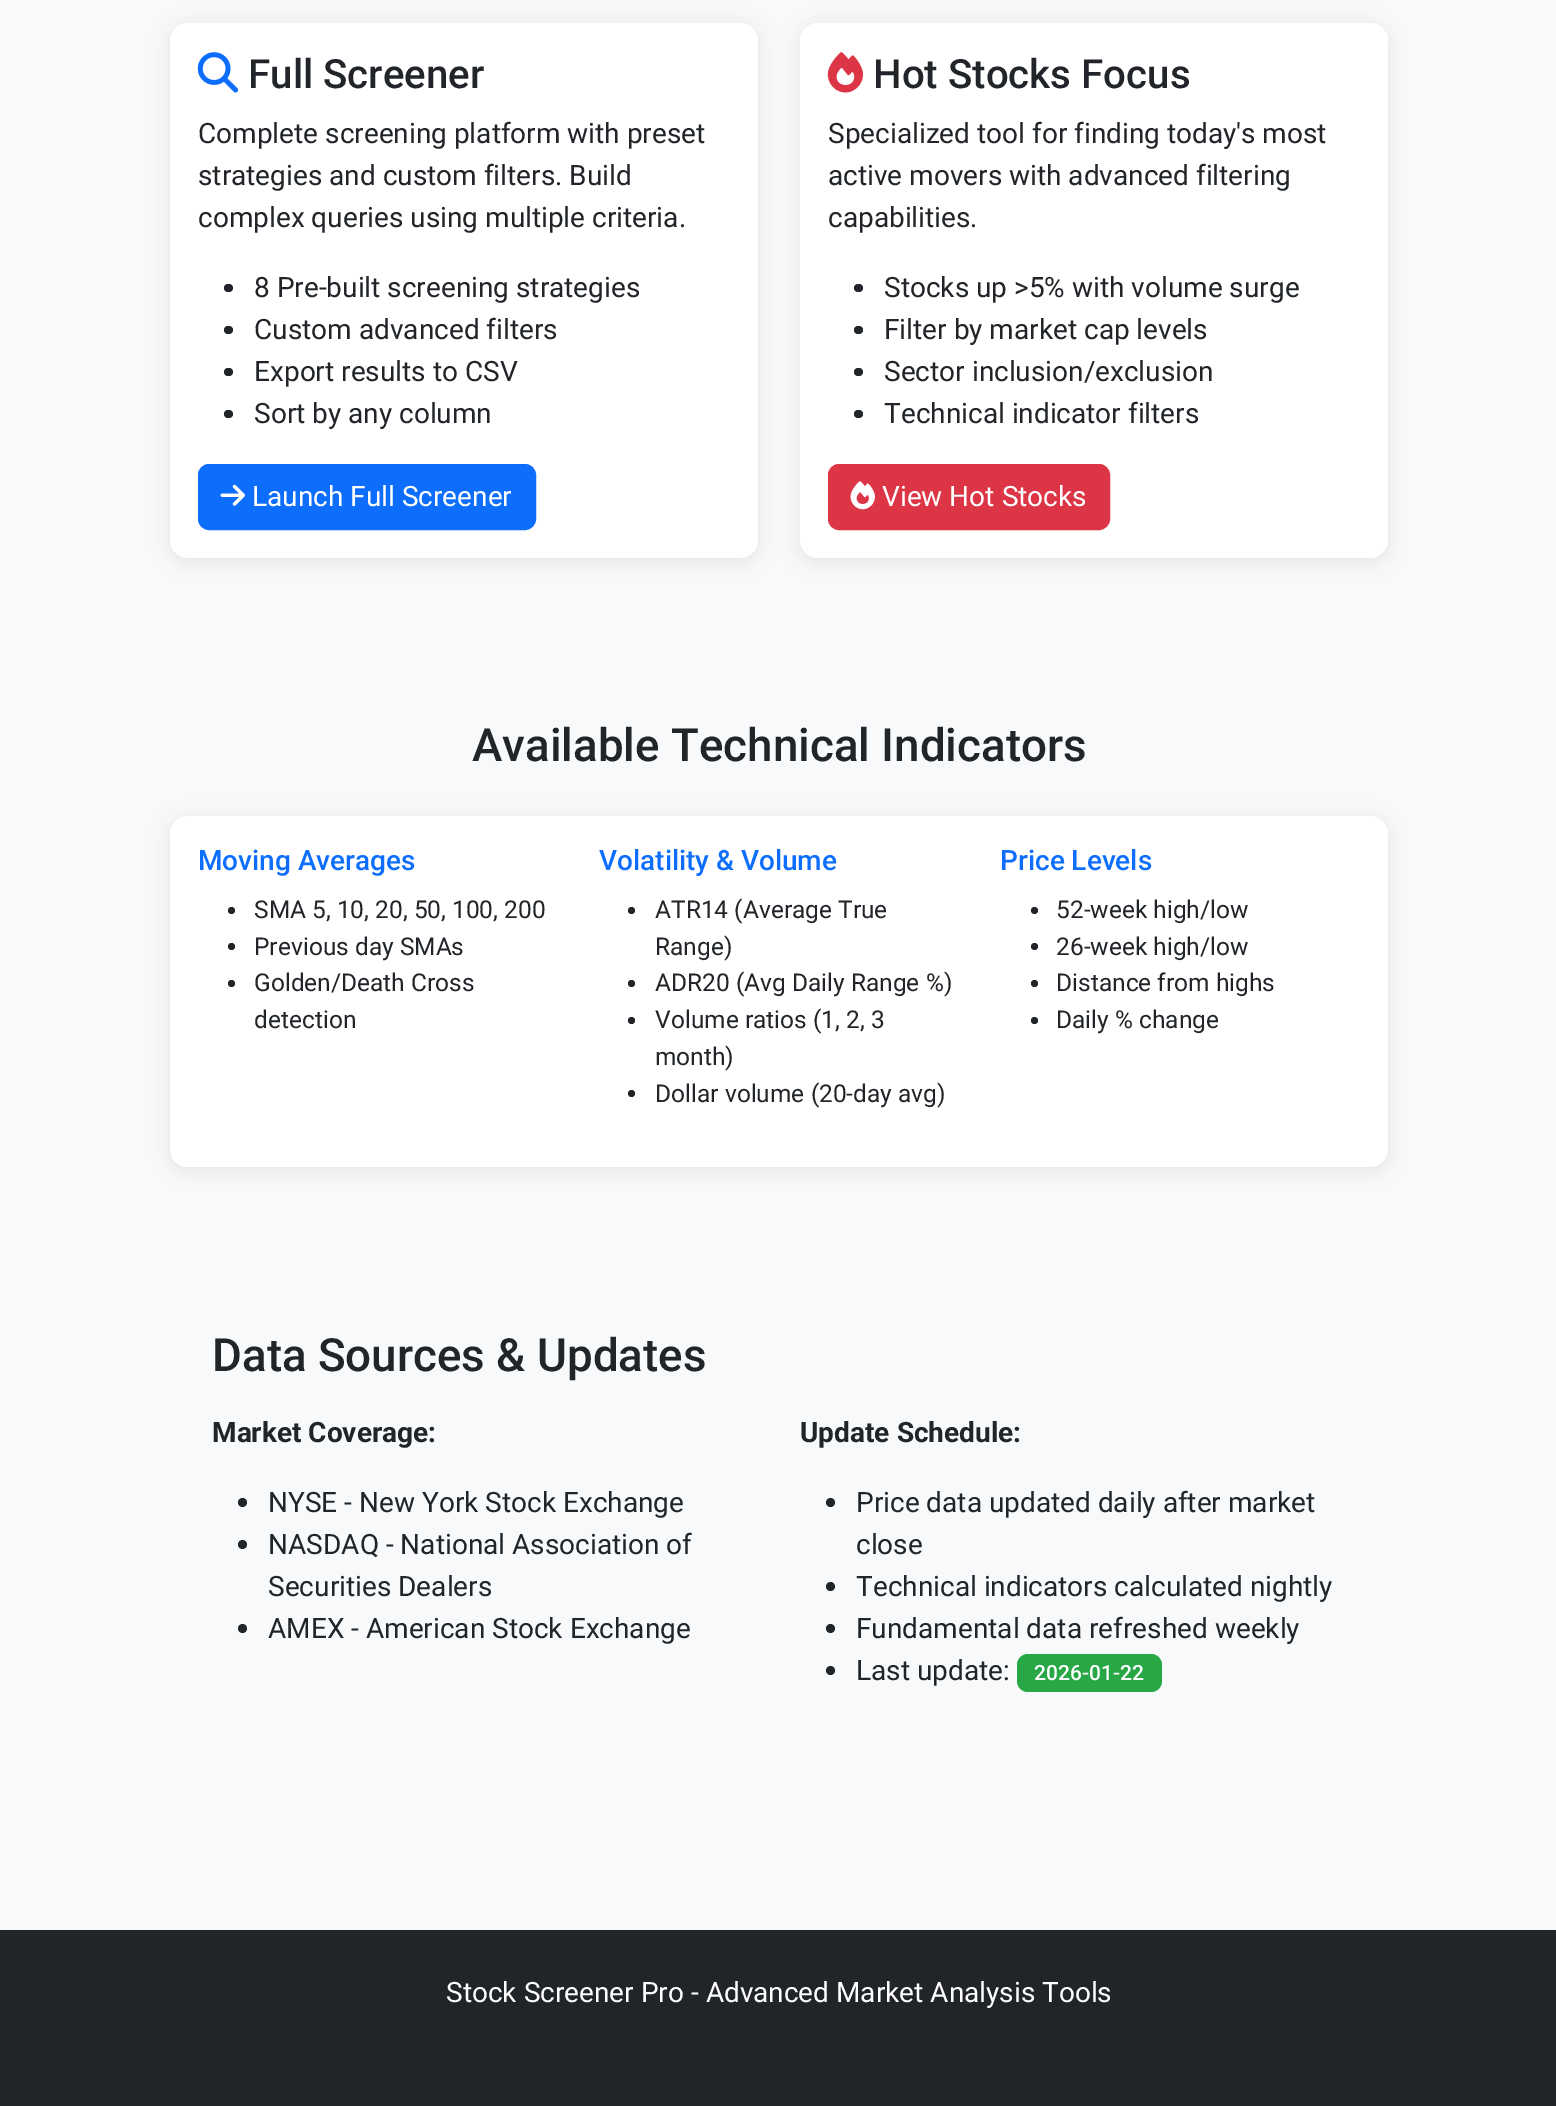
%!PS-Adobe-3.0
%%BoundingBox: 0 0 1556 2106
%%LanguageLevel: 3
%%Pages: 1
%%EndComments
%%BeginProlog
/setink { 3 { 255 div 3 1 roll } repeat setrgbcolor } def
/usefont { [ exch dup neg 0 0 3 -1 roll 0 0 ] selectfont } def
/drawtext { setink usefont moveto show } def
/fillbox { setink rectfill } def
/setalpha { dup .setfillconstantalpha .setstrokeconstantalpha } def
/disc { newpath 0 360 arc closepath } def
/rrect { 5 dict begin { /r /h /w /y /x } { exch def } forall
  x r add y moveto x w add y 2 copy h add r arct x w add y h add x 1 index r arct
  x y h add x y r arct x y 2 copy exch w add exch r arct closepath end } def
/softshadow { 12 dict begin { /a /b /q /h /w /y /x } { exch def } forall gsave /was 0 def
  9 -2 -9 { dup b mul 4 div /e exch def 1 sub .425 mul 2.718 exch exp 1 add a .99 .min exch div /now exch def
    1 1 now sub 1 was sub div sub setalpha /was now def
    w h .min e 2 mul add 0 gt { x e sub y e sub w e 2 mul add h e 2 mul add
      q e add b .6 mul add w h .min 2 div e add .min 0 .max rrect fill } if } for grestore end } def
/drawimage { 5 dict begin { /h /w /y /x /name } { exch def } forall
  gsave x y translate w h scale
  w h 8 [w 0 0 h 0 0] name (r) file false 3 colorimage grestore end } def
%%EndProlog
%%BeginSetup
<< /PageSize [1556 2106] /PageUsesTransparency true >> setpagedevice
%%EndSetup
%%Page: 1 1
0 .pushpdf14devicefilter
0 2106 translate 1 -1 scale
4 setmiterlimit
0 0 1556 2106 248 249 250 fillbox
0 0 0 setink
170 26 588 536 18 9 0.08 softshadow
255 255 255 setink
170 23 588 535 18 rrect fill
(assets/img1.rgb) 197 52 42 41 drawimage
(Full Screener) 248 88 /Roboto-Medium 40.25 33 37 41 drawtext
(Complete screening platform with preset) 198 143 /Roboto-Regular 28 33 37 41 drawtext
(strategies and custom filters. Build) 198 185 /Roboto-Regular 28 33 37 41 drawtext
(complex queries using multiple criteria.) 198 227 /Roboto-Regular 28 33 37 41 drawtext
224 284 9 8 4 rrect fill
(8 Pre-built screening strategies) 254 297 /Roboto-Regular 28 33 37 41 drawtext
224 326 9 8 4 rrect fill
(Custom advanced filters) 254 339 /Roboto-Regular 28 33 37 41 drawtext
224 368 9 8 4 rrect fill
(Export results to CSV) 254 381 /Roboto-Regular 28 33 37 41 drawtext
224 410 9 8 4 rrect fill
(Sort by any column) 254 423 /Roboto-Regular 28 33 37 41 drawtext
13 110 253 setink
199 465 336 64 10 rrect gsave fill grestore
2 setlinewidth
stroke
(assets/img2.rgb) 220 484 25 22 drawimage
(Launch Full Screener) 252 506 /Roboto-Regular 28 255 255 255 drawtext
0 0 0 setink
800 26 588 536 18 9 0.08 softshadow
255 255 255 setink
800 23 588 535 18 rrect fill
(assets/img3.rgb) 827 52 37 41 drawimage
(Hot Stocks Focus) 873 88 /Roboto-Medium 40.25 33 37 41 drawtext
(Specialized tool for finding today's most) 828 143 /Roboto-Regular 28 33 37 41 drawtext
(active movers with advanced filtering) 828 185 /Roboto-Regular 28 33 37 41 drawtext
(capabilities.) 828 227 /Roboto-Regular 28 33 37 41 drawtext
854 284 9 8 4 rrect fill
(Stocks up >5% with volume surge) 884 297 /Roboto-Regular 28 33 37 41 drawtext
854 326 9 8 4 rrect fill
(Filter by market cap levels) 884 339 /Roboto-Regular 28 33 37 41 drawtext
854 368 9 8 4 rrect fill
(Sector inclusion/exclusion) 884 381 /Roboto-Regular 28 33 37 41 drawtext
854 410 9 8 4 rrect fill
(Technical indicator filters) 884 423 /Roboto-Regular 28 33 37 41 drawtext
220 53 69 setink
829 465 280 64 10 rrect gsave fill grestore
stroke
(assets/img4.rgb) 850 481 25 29 drawimage
(View Hot Stocks) 882 506 /Roboto-Regular 28 255 255 255 drawtext
(Available Technical Indicators) 472 761 /Roboto-Medium 45.75 33 37 41 drawtext
0 0 0 setink
170 819 1218 352 18 9 0.08 softshadow
255 255 255 setink
170 816 1218 351 18 rrect fill
(Moving Averages) 198 870 /Roboto-Medium 28 13 110 253 drawtext
33 37 41 setink
231.5 910.5 3.5 disc fill
(SMA 5, 10, 20, 50, 100, 200) 254 918 /Roboto-Regular 24.5 33 37 41 drawtext
231.5 946.5 3.5 disc fill
(Previous day SMAs) 254 955 /Roboto-Regular 24.5 33 37 41 drawtext
231.5 983.5 3.5 disc fill
(Golden/Death Cross) 254 991 /Roboto-Regular 24.5 33 37 41 drawtext
(detection) 254 1028 /Roboto-Regular 24.5 33 37 41 drawtext
(Volatility & Volume) 599 870 /Roboto-Medium 28 13 110 253 drawtext
33 37 41 setink
631.5 910.5 3.5 disc fill
(ATR14 \(Average True) 655 918 /Roboto-Regular 24.5 33 37 41 drawtext
(Range\)) 655 955 /Roboto-Regular 24.5 33 37 41 drawtext
631.5 983.5 3.5 disc fill
(ADR20 \(Avg Daily Range %\)) 655 991 /Roboto-Regular 24.5 33 37 41 drawtext
631.5 1020.5 3.5 disc fill
(Volume ratios \(1, 2, 3) 655 1028 /Roboto-Regular 24.5 33 37 41 drawtext
(month\)) 655 1065 /Roboto-Regular 24.5 33 37 41 drawtext
631.5 1093.5 3.5 disc fill
(Dollar volume \(20-day avg\)) 655 1102 /Roboto-Regular 24.5 33 37 41 drawtext
(Price Levels) 1000 870 /Roboto-Medium 28 13 110 253 drawtext
33 37 41 setink
1034.5 910.5 3.5 disc fill
(52-week high/low) 1056 918 /Roboto-Regular 24.5 33 37 41 drawtext
1034.5 946.5 3.5 disc fill
(26-week high/low) 1056 955 /Roboto-Regular 24.5 33 37 41 drawtext
1034.5 983.5 3.5 disc fill
(Distance from highs) 1056 991 /Roboto-Regular 24.5 33 37 41 drawtext
1034.5 1020.5 3.5 disc fill
(Daily % change) 1056 1028 /Roboto-Regular 24.5 33 37 41 drawtext
(Data Sources & Updates) 212 1371 /Roboto-Medium 45.75 33 37 41 drawtext
(Market Coverage:) 212 1442 /Roboto-Bold 28 33 37 41 drawtext
242.5 1502.5 4.5 disc fill
(NYSE - New York Stock Exchange) 268 1512 /Roboto-Regular 28 33 37 41 drawtext
242.5 1544.5 4.5 disc fill
(NASDAQ - National Association of) 268 1554 /Roboto-Regular 28 33 37 41 drawtext
(Securities Dealers) 268 1596 /Roboto-Regular 28 33 37 41 drawtext
242.5 1628.5 4.5 disc fill
(AMEX - American Stock Exchange) 268 1638 /Roboto-Regular 28 33 37 41 drawtext
(Update Schedule:) 800 1442 /Roboto-Bold 28 33 37 41 drawtext
830.5 1502.5 4.5 disc fill
(Price data updated daily after market) 856 1512 /Roboto-Regular 28 33 37 41 drawtext
(close) 856 1554 /Roboto-Regular 28 33 37 41 drawtext
830.5 1586.5 4.5 disc fill
(Technical indicators calculated nightly) 856 1596 /Roboto-Regular 28 33 37 41 drawtext
830.5 1628.5 4.5 disc fill
(Fundamental data refreshed weekly) 856 1638 /Roboto-Regular 28 33 37 41 drawtext
830.5 1670.5 4.5 disc fill
(Last update:) 856 1680 /Roboto-Regular 28 33 37 41 drawtext
40 167 69 setink
1017 1654 145 38 11 rrect fill
(2026-01-22) 1034 1680 /Roboto-Medium 21 255 255 255 drawtext
0 1930 1556 176 33 37 41 fillbox
(Stock Screener Pro - Advanced Market Analysis Tools) 446 2002 /Roboto-Regular 28 255 255 255 drawtext
.poppdf14devicefilter showpage
%%EOF
